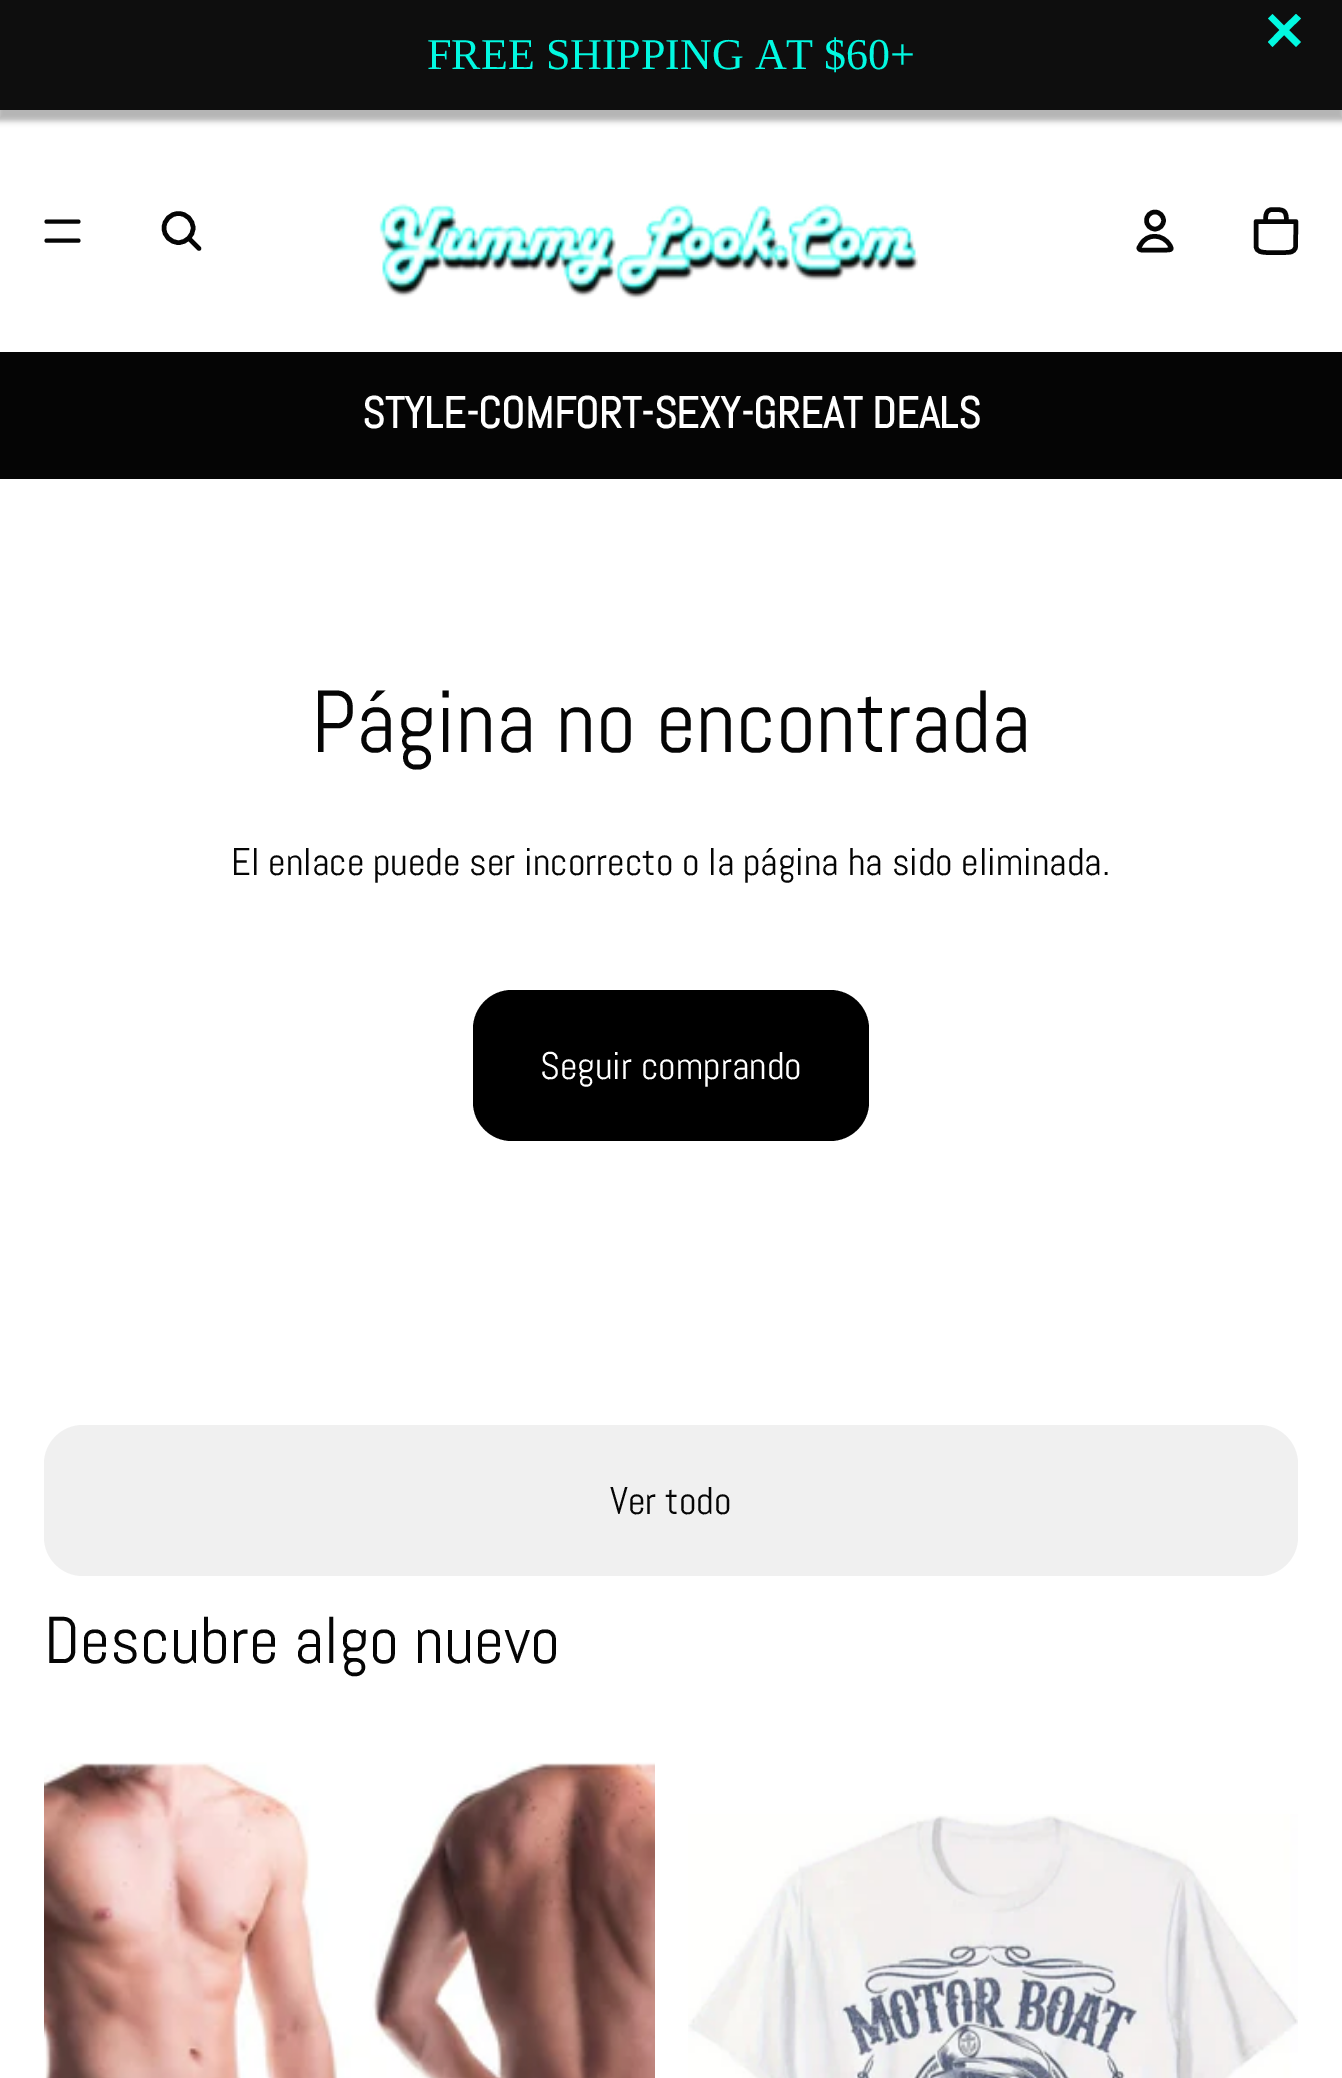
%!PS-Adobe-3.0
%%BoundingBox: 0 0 1342 2078
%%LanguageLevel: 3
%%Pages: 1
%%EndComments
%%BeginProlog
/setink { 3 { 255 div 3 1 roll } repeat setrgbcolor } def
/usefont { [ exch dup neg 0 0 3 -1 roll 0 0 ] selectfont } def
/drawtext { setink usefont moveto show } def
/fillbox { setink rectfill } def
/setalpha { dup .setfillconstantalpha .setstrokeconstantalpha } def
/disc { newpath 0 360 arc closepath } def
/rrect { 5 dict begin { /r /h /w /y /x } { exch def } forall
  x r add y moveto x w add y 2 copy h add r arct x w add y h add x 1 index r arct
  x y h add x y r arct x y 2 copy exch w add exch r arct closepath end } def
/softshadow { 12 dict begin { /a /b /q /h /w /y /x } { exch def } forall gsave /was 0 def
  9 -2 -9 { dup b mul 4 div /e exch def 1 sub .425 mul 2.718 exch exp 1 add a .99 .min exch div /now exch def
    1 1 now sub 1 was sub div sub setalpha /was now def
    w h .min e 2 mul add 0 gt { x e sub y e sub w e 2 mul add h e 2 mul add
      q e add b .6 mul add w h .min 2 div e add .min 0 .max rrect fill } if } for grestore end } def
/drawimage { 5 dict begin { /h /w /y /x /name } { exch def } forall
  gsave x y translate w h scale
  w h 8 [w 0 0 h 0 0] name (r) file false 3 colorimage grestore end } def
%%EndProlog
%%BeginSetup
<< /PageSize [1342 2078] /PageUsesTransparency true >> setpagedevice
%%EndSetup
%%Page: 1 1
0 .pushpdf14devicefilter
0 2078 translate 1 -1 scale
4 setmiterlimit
0 0 1342 2078 255 255 255 fillbox
0 0 0 setink
-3 6 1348 115 0 3 0.3 softshadow
0 0 1342 110 14 14 14 fillbox
2 249 225 setink
1301 18.5 moveto 1296 14 lineto 1284 25.5 lineto 1272.5 14 lineto 1268 18.5 lineto 1279.5 30 lineto 1268 42 lineto 1272.5 47 lineto 1284 35 lineto 1296 47 lineto 1301 42 lineto 1289 30 lineto closepath fill
(FREE SHIPPING AT $60+) 427 69 /LiberationSerif-Regular 44 2 249 225 drawtext
5 5 5 setink
4 setlinewidth
1 setlinecap
46.5 221.5 moveto 78.5 221.5 lineto 46.5 240.5 moveto 78.5 240.5 lineto stroke
4.5 setlinewidth
0 setlinecap
178.5 228 14.5 disc stroke
1 setlinecap
1 setlinejoin
189 238.5 moveto 199 248.5 lineto stroke
(assets/img1.rgb) 379 203 539 96 drawimage
0 setlinecap
0 setlinejoin
1155 220.5 8.5 disc stroke
1 setlinecap
1 setlinejoin
1140.5 245 moveto 1139 247.5 lineto 1138 251 1145 250 1145.5 250 curveto 1150 250 lineto 1153 250 1169 250.5 1170.5 249.5 curveto 1171 249 lineto 1171.5 248 1170.5 246.5 1170 245.5 curveto 1163.5 234 1147 232.5 1140.5 245 curveto stroke
1256 221.5 moveto 1296 221.5 lineto 1295.5 247.5 lineto 1294 252.5 1289.5 252.5 1285 252.5 curveto 1267 252.5 lineto 1262.5 252.5 1256 252 1256 246 curveto closepath 1272.5 209.5 moveto 1283.5 209.5 1286.5 209.5 1286.5 221.5 curveto 1265.5 221.5 lineto 1265.5 216.5 1265.5 209.5 1272.5 209.5 curveto stroke
0 352 1342 127 5 5 5 fillbox
(STYLE-COMFORT-SEXY-GREAT DEALS) 362 428 /Abel-Bold 44 255 255 255 drawtext
(Página no encontrada) 311 752 /Abel-Regular 88 5 5 5 drawtext
(El enlace puede ser incorrecto o la página ha sido eliminada.) 231 875 /Abel-Regular 38.5 5 5 5 drawtext
0 0 0 setink
473 990 396 151 39 rrect fill
(Seguir comprando) 540 1079 /Abel-Regular 38.5 255 255 255 drawtext
240 240 240 setink
44 1425 1254 151 39 rrect fill
(Ver todo) 610 1514 /Abel-Regular 38.5 5 5 5 drawtext
(Descubre algo nuevo) 44 1663 /Abel-Regular 66 5 5 5 drawtext
(assets/img2.rgb) 44 1762 611 316 drawimage
(assets/img3.rgb) 688 1814 610 264 drawimage
.poppdf14devicefilter showpage
%%EOF
